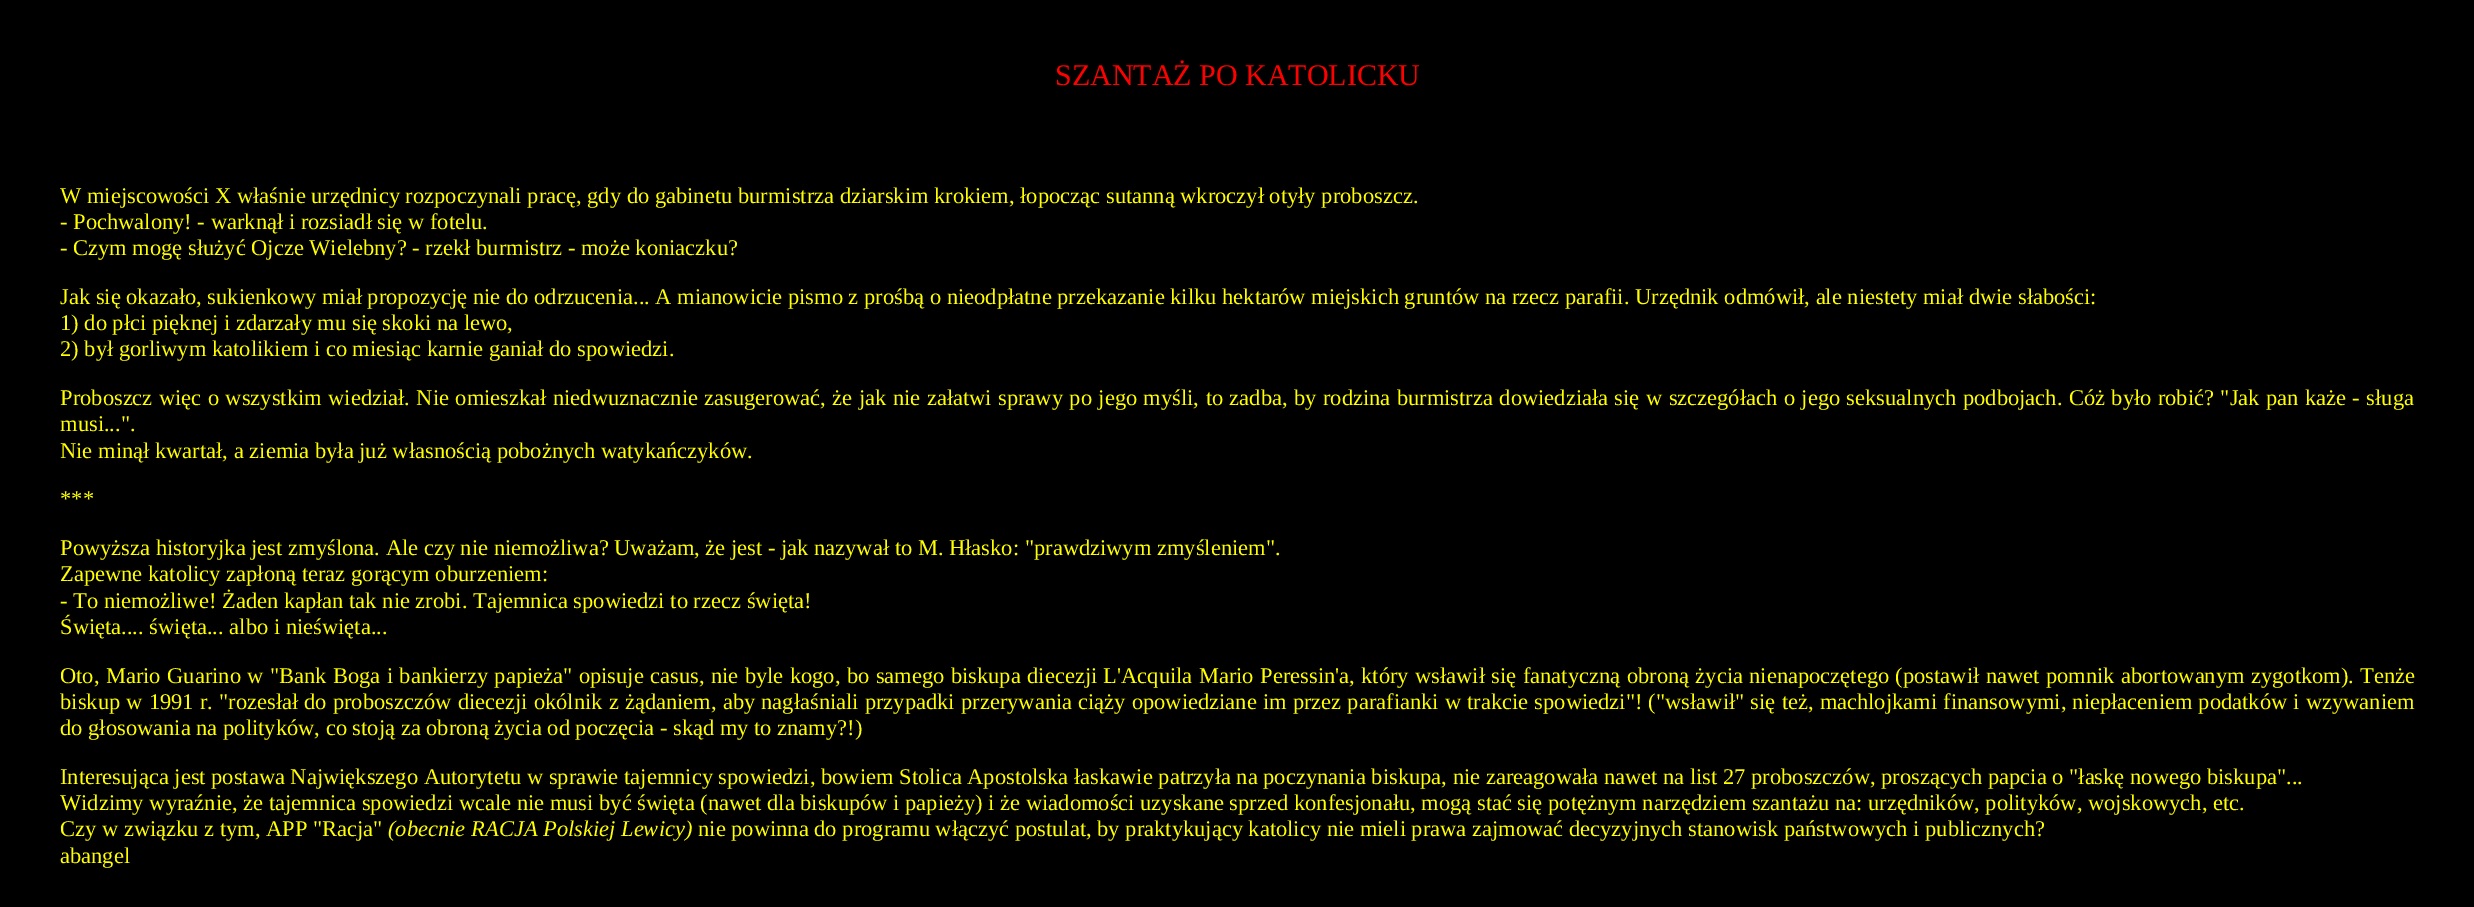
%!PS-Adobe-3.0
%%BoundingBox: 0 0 2474 907
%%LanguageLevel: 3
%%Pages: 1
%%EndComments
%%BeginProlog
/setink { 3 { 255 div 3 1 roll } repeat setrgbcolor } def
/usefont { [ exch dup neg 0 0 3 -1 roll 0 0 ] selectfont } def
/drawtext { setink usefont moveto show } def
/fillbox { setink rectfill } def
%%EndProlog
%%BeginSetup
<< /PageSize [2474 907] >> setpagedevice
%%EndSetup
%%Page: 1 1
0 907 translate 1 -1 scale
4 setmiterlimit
0 0 2474 907 0 0 0 fillbox
(SZANTAŻ PO KATOLICKU) 1055 85 /LiberationSerif-Regular 30 255 0 0 drawtext
(W miejscowości X właśnie urzędnicy rozpoczynali pracę, gdy do gabinetu burmistrza dziarskim krokiem, łopocząc sutanną wkroczył otyły proboszcz.) 60 203 /LiberationSerif-Regular 22.5 255 255 0 drawtext
(- Pochwalony! - warknął i rozsiadł się w fotelu.) 60 229 /LiberationSerif-Regular 22.5 255 255 0 drawtext
(- Czym mogę służyć Ojcze Wielebny? - rzekł burmistrz - może koniaczku?) 60 255 /LiberationSerif-Regular 22.5 255 255 0 drawtext
(Jak się okazało, sukienkowy miał propozycję nie do odrzucenia... A mianowicie pismo z prośbą o nieodpłatne przekazanie kilku hektarów miejskich gruntów na rzecz parafii. Urzędnik odmówił, ale niestety miał dwie słabości:) 60 304 /LiberationSerif-Regular 22.5 255 255 0 drawtext
(1\) do płci pięknej i zdarzały mu się skoki na lewo,) 60 330 /LiberationSerif-Regular 22.5 255 255 0 drawtext
(2\) był gorliwym katolikiem i co miesiąc karnie ganiał do spowiedzi.) 60 356 /LiberationSerif-Regular 22.5 255 255 0 drawtext
60 405 moveto 0.8 0 32 (Proboszcz więc o wszystkim wiedział. Nie omieszkał niedwuznacznie zasugerować, że jak nie załatwi sprawy po jego myśli, to zadba, by rodzina burmistrza dowiedziała się w szczegółach o jego seksualnych podbojach. Cóż było robić? "Jak pan każe - sługa) widthshow
(musi...".) 60 431 /LiberationSerif-Regular 22.5 255 255 0 drawtext
(Nie minął kwartał, a ziemia była już własnością pobożnych watykańczyków.) 60 458 /LiberationSerif-Regular 22.5 255 255 0 drawtext
(***) 60 506 /LiberationSerif-Regular 22.5 255 255 0 drawtext
(Powyższa historyjka jest zmyślona. Ale czy nie niemożliwa? Uważam, że jest - jak nazywał to M. Hłasko: "prawdziwym zmyśleniem".) 60 555 /LiberationSerif-Regular 22.5 255 255 0 drawtext
(Zapewne katolicy zapłoną teraz gorącym oburzeniem:) 60 581 /LiberationSerif-Regular 22.5 255 255 0 drawtext
(- To niemożliwe! Żaden kapłan tak nie zrobi. Tajemnica spowiedzi to rzecz święta!) 60 608 /LiberationSerif-Regular 22.5 255 255 0 drawtext
(Święta.... święta... albo i nieświęta...) 60 634 /LiberationSerif-Regular 22.5 255 255 0 drawtext
60 683 moveto 0.75 0 32 (Oto, Mario Guarino w "Bank Boga i bankierzy papieża" opisuje casus, nie byle kogo, bo samego biskupa diecezji L'Acquila Mario Peressin'a, który wsławił się fanatyczną obroną życia nienapoczętego \(postawił nawet pomnik abortowanym zygotkom\). Tenże) widthshow
60 709 moveto 0.5 0 32 (biskup w 1991 r. "rozesłał do proboszczów diecezji okólnik z żądaniem, aby nagłaśniali przypadki przerywania ciąży opowiedziane im przez parafianki w trakcie spowiedzi"! \("wsławił" się też, machlojkami finansowymi, niepłaceniem podatków i wzywaniem) widthshow
(do głosowania na polityków, co stoją za obroną życia od poczęcia - skąd my to znamy?!\)) 60 735 /LiberationSerif-Regular 22.5 255 255 0 drawtext
(Interesująca jest postawa Największego Autorytetu w sprawie tajemnicy spowiedzi, bowiem Stolica Apostolska łaskawie patrzyła na poczynania biskupa, nie zareagowała nawet na list 27 proboszczów, proszących papcia o "łaskę nowego biskupa"...) 60 784 /LiberationSerif-Regular 22.5 255 255 0 drawtext
(Widzimy wyraźnie, że tajemnica spowiedzi wcale nie musi być święta \(nawet dla biskupów i papieży\) i że wiadomości uzyskane sprzed konfesjonału, mogą stać się potężnym narzędziem szantażu na: urzędników, polityków, wojskowych, etc.) 60 810 /LiberationSerif-Regular 22.5 255 255 0 drawtext
(Czy w związku z tym, APP "Racja") 60 836 /LiberationSerif-Regular 22.5 255 255 0 drawtext
(\(obecnie RACJA Polskiej Lewicy\)) 388 836 /LiberationSerif-Italic 22.5 255 255 0 drawtext
(nie powinna do programu włączyć postulat, by praktykujący katolicy nie mieli prawa zajmować decyzyjnych stanowisk państwowych i publicznych?) 698 836 /LiberationSerif-Regular 22.5 255 255 0 drawtext
(abangel) 60 863 /LiberationSerif-Regular 22.5 255 255 0 drawtext
showpage
%%EOF
